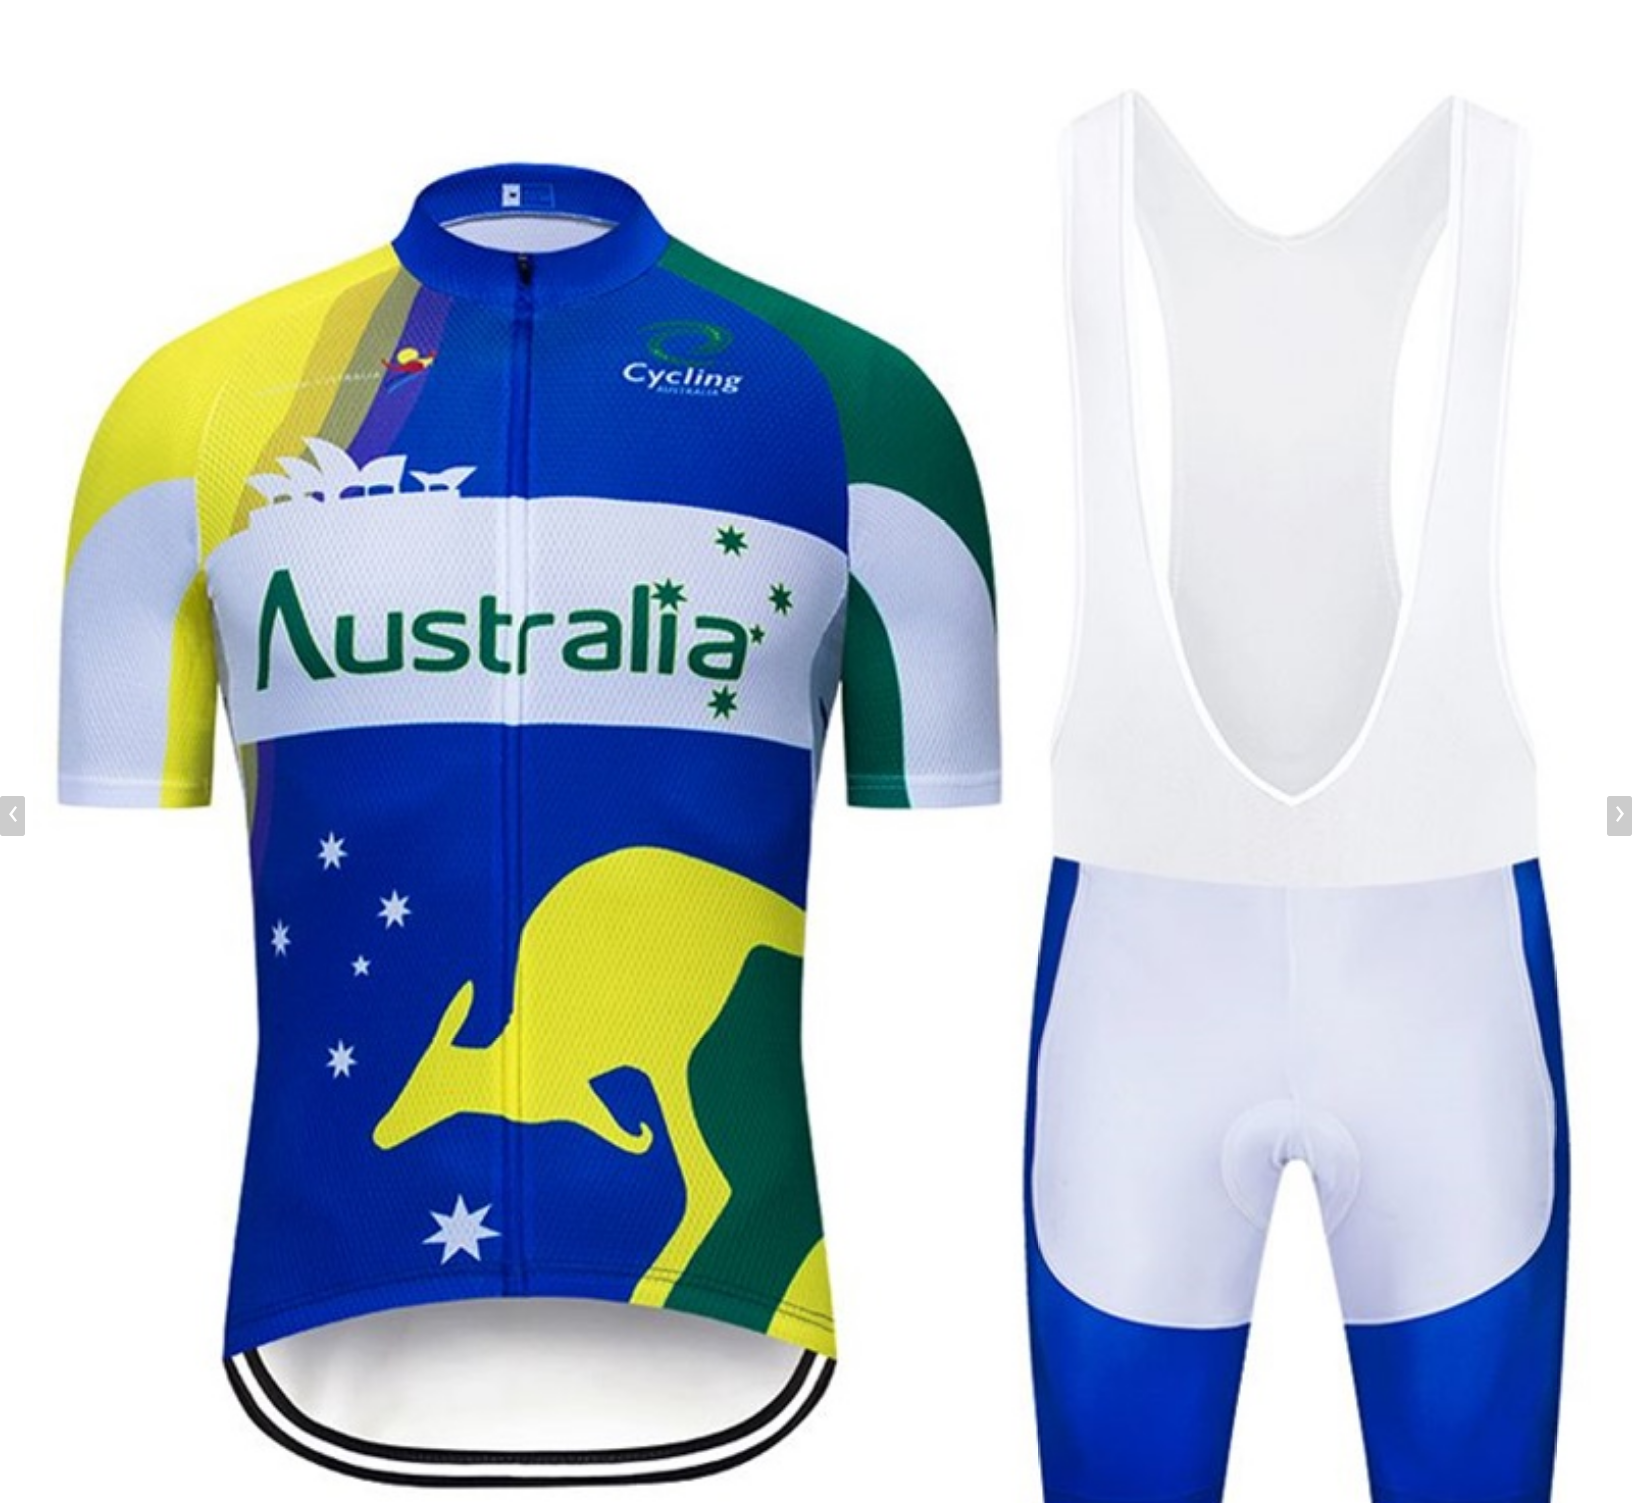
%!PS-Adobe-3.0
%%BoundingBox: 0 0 1632 1503
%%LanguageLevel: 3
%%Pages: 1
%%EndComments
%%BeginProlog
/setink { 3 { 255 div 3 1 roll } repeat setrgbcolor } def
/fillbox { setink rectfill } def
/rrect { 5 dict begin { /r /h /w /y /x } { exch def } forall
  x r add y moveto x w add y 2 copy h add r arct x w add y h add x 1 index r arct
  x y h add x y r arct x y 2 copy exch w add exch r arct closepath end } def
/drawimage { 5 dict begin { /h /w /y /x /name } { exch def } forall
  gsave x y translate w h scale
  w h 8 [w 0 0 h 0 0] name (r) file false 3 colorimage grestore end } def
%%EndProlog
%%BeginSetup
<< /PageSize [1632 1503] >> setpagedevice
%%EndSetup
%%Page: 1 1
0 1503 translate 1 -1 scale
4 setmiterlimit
0 0 1632 1503 255 255 255 fillbox
204 204 204 setink
0 796 25 40 3 rrect fill
(assets/img1.rgb) 9 806 8 16 drawimage
(assets/img2.rgb) 33 88 1558 1415 drawimage
1607 796 25 40 3 rrect fill
(assets/img3.rgb) 1616 806 8 16 drawimage
showpage
%%EOF
